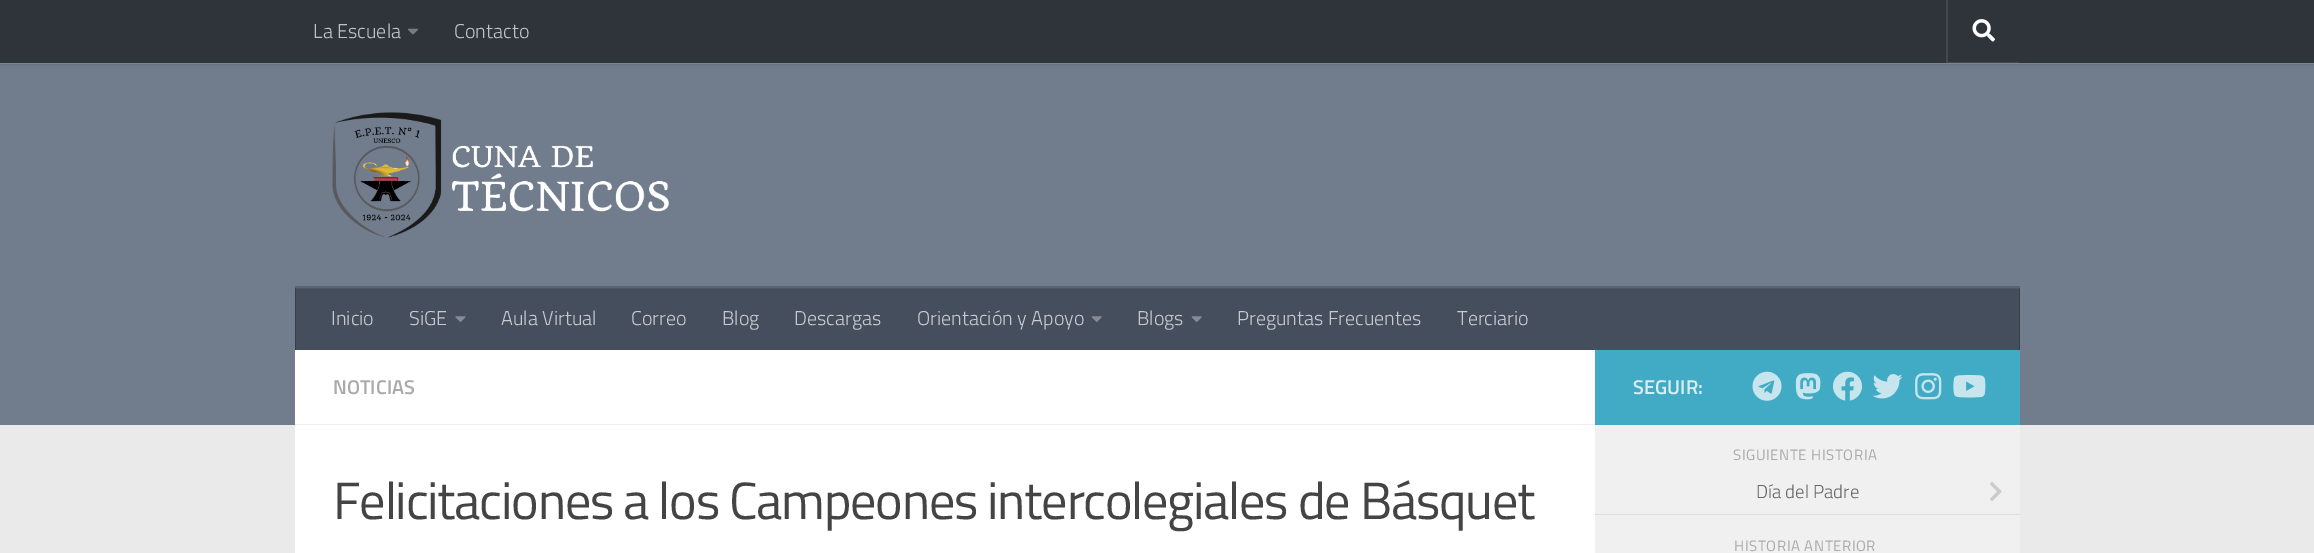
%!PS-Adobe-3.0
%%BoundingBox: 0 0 2314 553
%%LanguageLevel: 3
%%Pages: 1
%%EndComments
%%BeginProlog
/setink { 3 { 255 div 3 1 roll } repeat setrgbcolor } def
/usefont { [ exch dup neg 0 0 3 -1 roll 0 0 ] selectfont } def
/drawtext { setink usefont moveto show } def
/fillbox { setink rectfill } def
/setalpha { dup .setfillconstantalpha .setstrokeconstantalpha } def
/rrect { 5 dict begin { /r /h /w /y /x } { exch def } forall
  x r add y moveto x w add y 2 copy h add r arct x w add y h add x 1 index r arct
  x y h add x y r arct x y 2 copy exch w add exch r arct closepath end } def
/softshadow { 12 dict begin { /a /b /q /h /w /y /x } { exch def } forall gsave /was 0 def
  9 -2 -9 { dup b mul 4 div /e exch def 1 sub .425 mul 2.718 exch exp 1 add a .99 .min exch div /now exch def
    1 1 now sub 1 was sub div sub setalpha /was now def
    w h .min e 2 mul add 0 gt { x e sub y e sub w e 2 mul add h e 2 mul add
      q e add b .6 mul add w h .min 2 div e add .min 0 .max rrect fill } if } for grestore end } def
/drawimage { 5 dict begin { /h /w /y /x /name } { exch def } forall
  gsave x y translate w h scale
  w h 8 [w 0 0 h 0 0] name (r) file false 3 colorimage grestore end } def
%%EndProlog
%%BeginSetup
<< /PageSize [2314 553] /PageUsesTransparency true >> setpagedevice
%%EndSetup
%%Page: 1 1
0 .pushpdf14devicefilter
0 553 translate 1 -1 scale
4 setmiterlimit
0 0 2314 553 234 234 234 fillbox
0 64 2314 361 113 125 140 fillbox
0 63 2314 1 134 145 157 fillbox
0 0 0 setink
0 0 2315 63 0 3 0.2 softshadow
0 0 2314 63 47 52 58 fillbox
(La Escuela) 313 38 /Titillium-Light 20 193 194 196 drawtext
(assets/img1.rgb) 408 28 10 7 drawimage
(Contacto) 454 38 /Titillium-Light 20 193 194 196 drawtext
68 72 78 setink
1946 0 moveto 1946 63 lineto 2019 63 lineto 2019 62 lineto 1948 62 lineto 1948 0 lineto closepath fill
(assets/img2.rgb) 1972 19 23 23 drawimage
(assets/img3.rgb) 332 112 337 126 drawimage
295 286 1725 2 90 100 112 fillbox
296 289 1723 61 69 78 92 fillbox
295 288 1725 1 78 87 100 fillbox
2019 288 1 62 55 62 74 fillbox
2019 288 1 1 65 72 83 fillbox
295 288 1 62 55 62 74 fillbox
295 288 1 1 65 72 83 fillbox
(Inicio) 331 325 /Titillium-Light 20 199 202 206 drawtext
(SiGE) 409 325 /Titillium-Light 20 199 202 206 drawtext
(assets/img4.rgb) 455 316 11 6 drawimage
(Aula Virtual) 501 325 /Titillium-Light 20 199 202 206 drawtext
(Correo) 631 325 /Titillium-Light 20 199 202 206 drawtext
(Blog) 722 325 /Titillium-Light 20 199 202 206 drawtext
(Descargas) 794 325 /Titillium-Light 20 199 202 206 drawtext
(Orientación y Apoyo) 917 325 /Titillium-Light 20 199 202 206 drawtext
(assets/img5.rgb) 1091 316 11 6 drawimage
(Blogs) 1137 325 /Titillium-Light 20 199 202 206 drawtext
(assets/img5.rgb) 1191 316 11 6 drawimage
(Preguntas Frecuentes) 1237 325 /Titillium-Light 20 199 202 206 drawtext
(Terciario) 1457 325 /Titillium-Light 20 199 202 206 drawtext
295 350 1300 203 255 255 255 fillbox
295 424 1300 1 238 238 238 fillbox
(NOTICIAS) 333 394 /Titillium-SemiBold 20 170 170 170 drawtext
/Titillium-Regular 52.4 usefont
68 68 68 setink
333 519 moveto -1.25 0 (Felicitaciones a los Campeones intercolegiales de Básquet) ashow
1595 350 425 75 65 170 196 fillbox
(SEGUIR:) 1633 394 /Titillium-SemiBold 20 217 238 243 drawtext
(assets/img6.rgb) 1752 371 30 30 drawimage
(assets/img7.rgb) 1795 373 26 27 drawimage
(assets/img8.rgb) 1833 371 29 30 drawimage
(assets/img9.rgb) 1872 374 31 25 drawimage
(assets/img10.rgb) 1915 373 27 27 drawimage
(assets/img11.rgb) 1953 375 33 23 drawimage
1595 425 425 128 240 240 240 fillbox
/Titillium-Regular 15 usefont
170 170 170 setink
1733 460 moveto 0.6 0 (SIGUIENTE HISTORIA) ashow
1595 514 425 1 221 221 221 fillbox
(Día del Padre) 1756 498 /Titillium-Light 18.75 102 102 102 drawtext
(assets/img12.rgb) 1990 482 12 19 drawimage
/Titillium-Regular 15 usefont
170 170 170 setink
1734 551 moveto 0.6 0 (HISTORIA ANTERIOR) ashow
.poppdf14devicefilter showpage
%%EOF
